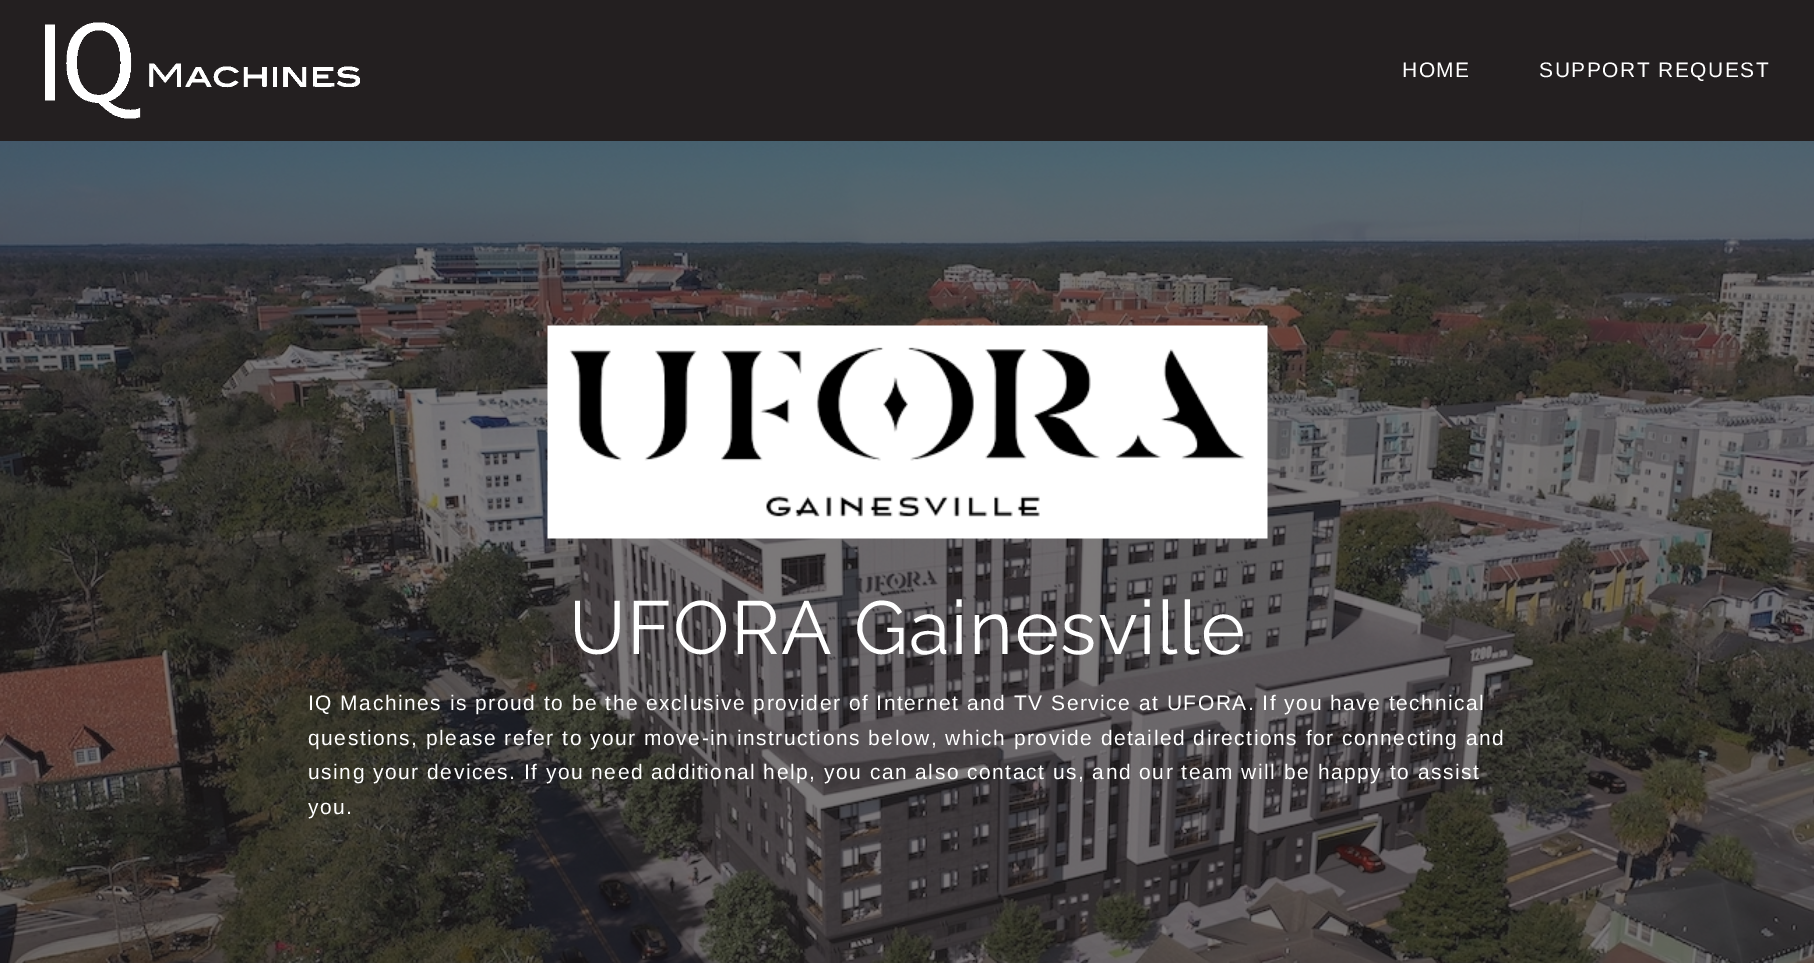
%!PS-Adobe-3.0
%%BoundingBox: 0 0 1814 963
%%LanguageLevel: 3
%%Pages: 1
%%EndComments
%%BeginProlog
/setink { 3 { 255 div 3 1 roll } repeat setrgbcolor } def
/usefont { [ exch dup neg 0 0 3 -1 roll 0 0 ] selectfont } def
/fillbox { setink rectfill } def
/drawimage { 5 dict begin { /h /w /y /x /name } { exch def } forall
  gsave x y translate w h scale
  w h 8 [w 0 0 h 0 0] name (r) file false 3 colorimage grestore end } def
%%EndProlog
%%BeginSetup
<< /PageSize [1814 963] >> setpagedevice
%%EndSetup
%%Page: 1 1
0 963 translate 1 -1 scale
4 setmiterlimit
0 0 1814 963 255 255 255 fillbox
0 0 1814 141 35 31 32 fillbox
(assets/img1.rgb) 45 22 315 97 drawimage
/LiberationSans-Regular 21 usefont
255 255 255 setink
1402 77 moveto 1.5 0 (HOME) ashow
1539 77 moveto 1.5 0 (SUPPORT REQUEST) ashow
(assets/img2.rgb) 0 141 1814 822 drawimage
(assets/img3.rgb) 547 325 721 214 drawimage
/Raleway-Regular 75 usefont
569 654 moveto 1.5 0 (UFORA Gainesville) ashow
/LiberationSans-Regular 21 usefont
308 710 moveto 1.5 0 (IQ Machines is proud to be the exclusive provider of Internet and TV Service at UFORA. If you have technical) ashow
308 745 moveto 1.5 0 (questions, please refer to your move-in instructions below, which provide detailed directions for connecting and) ashow
308 779 moveto 1.5 0 (using your devices. If you need additional help, you can also contact us, and our team will be happy to assist) ashow
308 814 moveto 1.5 0 (you.) ashow
showpage
%%EOF
